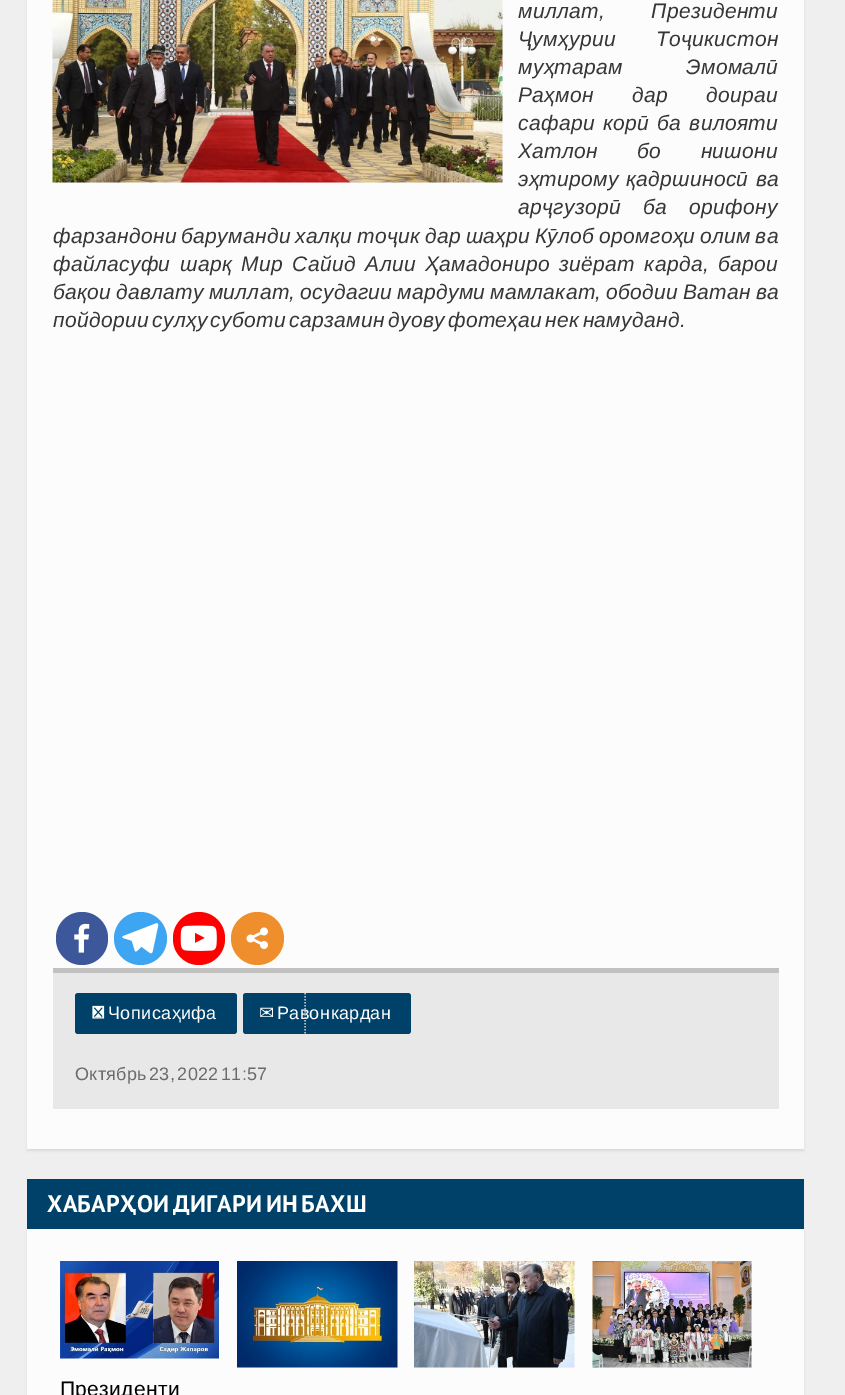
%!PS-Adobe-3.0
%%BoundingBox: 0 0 845 1395
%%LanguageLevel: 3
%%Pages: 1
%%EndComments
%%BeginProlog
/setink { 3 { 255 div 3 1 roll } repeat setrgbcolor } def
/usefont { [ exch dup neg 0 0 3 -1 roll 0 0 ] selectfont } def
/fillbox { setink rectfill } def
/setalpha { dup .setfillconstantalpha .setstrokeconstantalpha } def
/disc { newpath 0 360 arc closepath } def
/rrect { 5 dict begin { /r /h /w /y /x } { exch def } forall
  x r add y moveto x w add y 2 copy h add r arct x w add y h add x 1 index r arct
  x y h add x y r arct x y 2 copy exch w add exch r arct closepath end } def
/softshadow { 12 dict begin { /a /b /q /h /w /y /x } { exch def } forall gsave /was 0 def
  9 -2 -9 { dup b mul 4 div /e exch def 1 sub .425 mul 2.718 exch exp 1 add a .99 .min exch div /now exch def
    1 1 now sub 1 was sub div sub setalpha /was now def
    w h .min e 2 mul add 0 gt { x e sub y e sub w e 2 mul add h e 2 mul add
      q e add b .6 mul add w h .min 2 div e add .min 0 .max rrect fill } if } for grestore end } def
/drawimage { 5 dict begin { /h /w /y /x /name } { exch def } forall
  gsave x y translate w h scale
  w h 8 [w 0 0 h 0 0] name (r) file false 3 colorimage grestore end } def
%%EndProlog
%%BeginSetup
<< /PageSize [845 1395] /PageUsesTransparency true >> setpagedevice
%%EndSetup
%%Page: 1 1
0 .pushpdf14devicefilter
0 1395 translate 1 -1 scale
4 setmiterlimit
0 0 845 1395 240 239 239 fillbox
0 0 0 setink
27 -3 777 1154 0 1 0.08 softshadow
27 0 777 1149 252 252 252 fillbox
(assets/img1.rgb) 52 0 451 183 drawimage
/LiberationSans-Italic 21 usefont
54 54 53 setink
518 18 moveto 40 0 32 0.32 0 (миллат, Президенти) awidthshow
518 46 moveto 34 0 32 0.32 0 (Ҷумҳурии Тоҷикистон) awidthshow
518 74 moveto 57 0 32 0.32 0 (муҳтарам Эмомалӣ) awidthshow
518 102 moveto 32 0 32 0.32 0 (Раҳмон дар доираи) awidthshow
518 130 moveto 2 0 32 0.32 0 (сафари корӣ ба вилояти) awidthshow
518 158 moveto 33 0 32 0.32 0 (Хатлон бо нишони) awidthshow
518 186 moveto 1 0 32 0.32 0 (эҳтирому қадршиносӣ ва) awidthshow
518 214 moveto 16 0 32 0.32 0 (арҷгузорӣ ба орифону) awidthshow
53 243 moveto -1.5 0 32 0.32 0 (фарзандони баруманди халқи тоҷик дар шаҳри Кӯлоб оромгоҳи олим ва) awidthshow
53 271 moveto 3.25 0 32 0.32 0 (файласуфи шарқ Мир Сайид Алии Ҳамадониро зиёрат карда, барои) awidthshow
53 299 moveto -1.5 0 32 0.32 0 (бақои давлату миллат, осудагии мардуми мамлакат, ободии Ватан ва) awidthshow
53 327 moveto -3 0 32 0.32 0 (пойдории сулҳу суботи сарзамин дуову фотеҳаи нек намуданд.) awidthshow
60 88 154 setink
56 912 52 53 26 rrect fill
(assets/img2.rgb) 74 923 16 30 drawimage
61 165 241 setink
140.5 938.5 26.5 disc fill
(assets/img3.rgb) 122 923 37 31 drawimage
255 0 0 setink
173 912 52 53 26 rrect fill
(assets/img4.rgb) 180 925 37 26 drawimage
238 142 45 setink
257.5 938.5 26.5 disc fill
(assets/img5.rgb) 246 927 22 22 drawimage
53 973 726 136 232 232 232 fillbox
53 968 726 5 193 193 193 fillbox
0 65 106 setink
243 993 168 41 3 rrect fill
/LiberationSans-Regular 18 usefont
255 255 255 setink
277 1019 moveto -4 0 32 0.25 0 (Равон кардан) awidthshow
193 193 193 setink
1.5 setlinewidth
[1.5 1.5] 0 setdash
305 993 moveto 305 1033.5 lineto stroke
0 65 106 setink
75 993 162 41 3 rrect fill
(assets/img6.rgb) 92 1005 13 14 drawimage
255 255 255 setink
108 1019 moveto -4 0 32 0.25 0 (Чопи саҳифа) awidthshow
/DejaVuSans-Regular 18 usefont
259 1019 moveto 0.25 0 (✉) ashow
/LiberationSans-Regular 18 usefont
107 107 107 setink
75 1080 moveto -3 0 32 0.32 0 (Октябрь 23, 2022 11:57) awidthshow
27 1179 777 50 0 65 106 fillbox
/PTSans-Bold 24 usefont
255 255 255 setink
47 1212 moveto -3 0 32 0.32 0 (ХАБАРҲОИ ДИГАРИ ИН БАХШ) awidthshow
0 0 0 setink
27 1230 777 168 0 1 0.08 softshadow
27 1229 777 166 252 252 252 fillbox
(assets/img7.rgb) 237 1261 161 107 drawimage
(assets/img8.rgb) 414 1261 161 107 drawimage
(assets/img9.rgb) 592 1261 160 107 drawimage
(assets/img10.rgb) 60 1261 159 98 drawimage
/LiberationSans-Regular 21 usefont
0 0 0 setink
60 1396 moveto 0.32 0 (Президенти) ashow
.poppdf14devicefilter showpage
%%EOF
